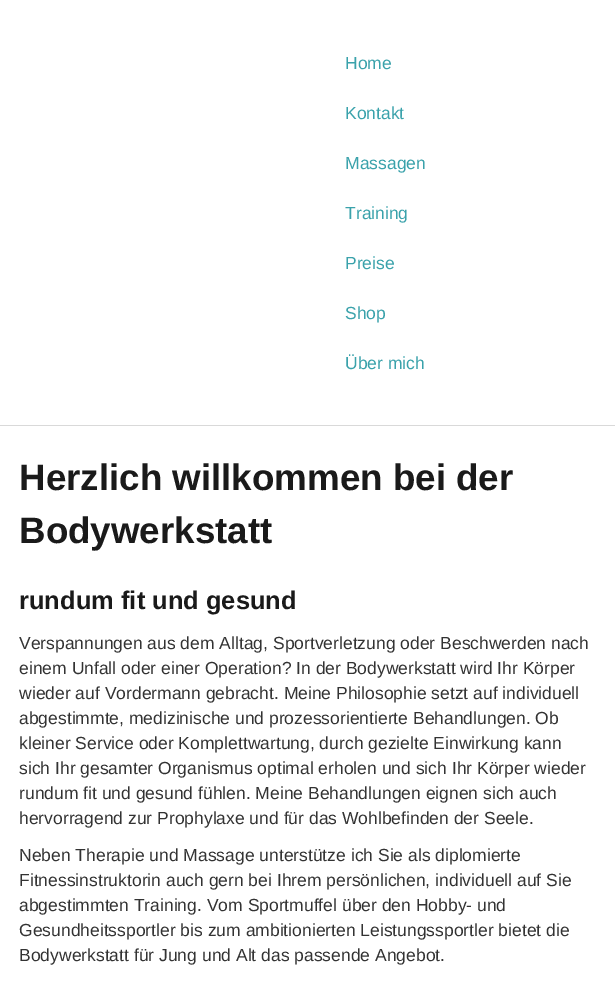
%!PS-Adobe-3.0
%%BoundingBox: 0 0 615 987
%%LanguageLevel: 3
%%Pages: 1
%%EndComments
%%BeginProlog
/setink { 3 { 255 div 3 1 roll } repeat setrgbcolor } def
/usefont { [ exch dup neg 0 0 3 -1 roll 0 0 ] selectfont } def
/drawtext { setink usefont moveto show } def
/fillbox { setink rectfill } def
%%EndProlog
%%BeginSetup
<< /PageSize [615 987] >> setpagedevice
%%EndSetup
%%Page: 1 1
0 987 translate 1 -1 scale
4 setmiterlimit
0 0 615 987 255 255 255 fillbox
0 425 615 1 217 217 217 fillbox
(Home) 345 69 /LiberationSans-Regular 17.5 58 162 171 drawtext
(Kontakt) 345 119 /LiberationSans-Regular 17.5 58 162 171 drawtext
(Massagen) 345 169 /LiberationSans-Regular 17.5 58 162 171 drawtext
(Training) 345 219 /LiberationSans-Regular 17.5 58 162 171 drawtext
(Preise) 345 269 /LiberationSans-Regular 17.5 58 162 171 drawtext
(Shop) 345 319 /LiberationSans-Regular 17.5 58 162 171 drawtext
(Über mich) 345 369 /LiberationSans-Regular 17.5 58 162 171 drawtext
(Herzlich willkommen bei der) 19 490 /LiberationSans-Bold 36.75 26 26 26 drawtext
(Bodywerkstatt) 19 543 /LiberationSans-Bold 36.75 26 26 26 drawtext
(rundum fit und gesund) 19 609 /LiberationSans-Bold 25.5 26 26 26 drawtext
(Verspannungen aus dem Alltag, Sportverletzung oder Beschwerden nach) 19 649 /LiberationSans-Regular 17.5 51 51 51 drawtext
(einem Unfall oder einer Operation? In der Bodywerkstatt wird Ihr Körper) 19 674 /LiberationSans-Regular 17.5 51 51 51 drawtext
(wieder auf Vordermann gebracht. Meine Philosophie setzt auf individuell) 19 699 /LiberationSans-Regular 17.5 51 51 51 drawtext
(abgestimmte, medizinische und prozessorientierte Behandlungen. Ob) 19 724 /LiberationSans-Regular 17.5 51 51 51 drawtext
(kleiner Service oder Komplettwartung, durch gezielte Einwirkung kann) 19 749 /LiberationSans-Regular 17.5 51 51 51 drawtext
(sich Ihr gesamter Organismus optimal erholen und sich Ihr Körper wieder) 19 774 /LiberationSans-Regular 17.5 51 51 51 drawtext
(rundum fit und gesund fühlen. Meine Behandlungen eignen sich auch) 19 799 /LiberationSans-Regular 17.5 51 51 51 drawtext
(hervorragend zur Prophylaxe und für das Wohlbefinden der Seele.) 19 824 /LiberationSans-Regular 17.5 51 51 51 drawtext
(Neben Therapie und Massage unterstütze ich Sie als diplomierte) 19 861 /LiberationSans-Regular 17.5 51 51 51 drawtext
(Fitnessinstruktorin auch gern bei Ihrem persönlichen, individuell auf Sie) 19 886 /LiberationSans-Regular 17.5 51 51 51 drawtext
(abgestimmten Training. Vom Sportmuffel über den Hobby- und) 19 911 /LiberationSans-Regular 17.5 51 51 51 drawtext
(Gesundheitssportler bis zum ambitionierten Leistungssportler bietet die) 19 936 /LiberationSans-Regular 17.5 51 51 51 drawtext
(Bodywerkstatt für Jung und Alt das passende Angebot.) 19 961 /LiberationSans-Regular 17.5 51 51 51 drawtext
showpage
%%EOF
